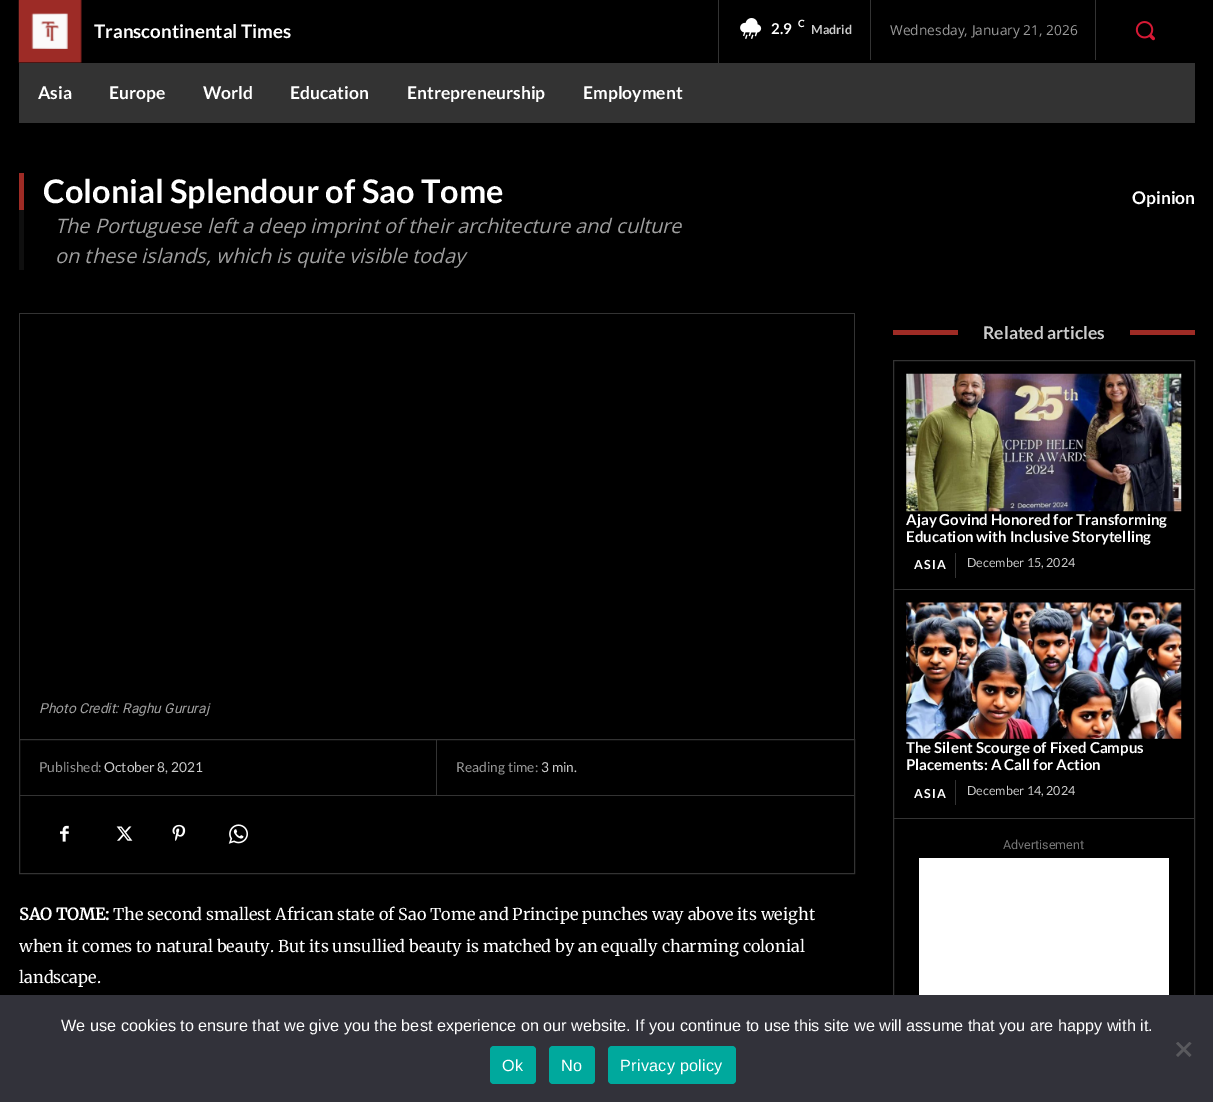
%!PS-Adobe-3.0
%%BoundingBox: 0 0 1213 1102
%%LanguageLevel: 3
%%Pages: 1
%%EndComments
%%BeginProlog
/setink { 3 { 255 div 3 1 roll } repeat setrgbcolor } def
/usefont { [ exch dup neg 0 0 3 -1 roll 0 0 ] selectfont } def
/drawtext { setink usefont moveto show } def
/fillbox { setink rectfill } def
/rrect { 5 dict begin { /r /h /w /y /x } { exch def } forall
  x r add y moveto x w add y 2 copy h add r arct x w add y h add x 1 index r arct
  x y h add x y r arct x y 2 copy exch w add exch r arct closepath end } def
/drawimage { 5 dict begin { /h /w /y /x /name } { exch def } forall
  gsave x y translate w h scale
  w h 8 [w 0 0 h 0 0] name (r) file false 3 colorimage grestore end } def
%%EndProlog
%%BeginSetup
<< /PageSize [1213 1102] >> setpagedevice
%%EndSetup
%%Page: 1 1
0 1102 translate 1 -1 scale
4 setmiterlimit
0 0 1213 1102 0 0 0 fillbox
(assets/img1.rgb) 18 0 64 63 drawimage
(Transcontinental Times) 94 38 /Lato-Bold 18.75 255 255 255 drawtext
718 0 1 63 51 51 51 fillbox
870 0 1 60 51 51 51 fillbox
(assets/img2.rgb) 740 18 22 21 drawimage
(2.9) 771 34 /Lato-Bold 15 255 255 255 drawtext
(C) 798 27 /Lato-Bold 10 255 255 255 drawtext
(Madrid) 811 34 /Lato-Bold 12.5 204 204 204 drawtext
1095 0 1 60 51 51 51 fillbox
(Wednesday, January 21, 2026) 890 35 /OpenSans-Regular 13.75 153 153 153 drawtext
(assets/img3.rgb) 1135 21 20 20 drawimage
19 63 1176 60 51 51 51 fillbox
(Asia) 38 99 /Lato-Bold 17.5 255 255 255 drawtext
(Europe) 109 99 /Lato-Bold 17.5 255 255 255 drawtext
(World) 203 99 /Lato-Bold 17.5 255 255 255 drawtext
(Education) 290 99 /Lato-Bold 17.5 255 255 255 drawtext
(Entrepreneurship) 407 99 /Lato-Bold 17.5 255 255 255 drawtext
(Employment) 583 99 /Lato-Bold 17.5 255 255 255 drawtext
19 173 5 37 158 43 37 fillbox
(Colonial Splendour of Sao Tome) 43 203 /Lato-Bold 32.5 255 255 255 drawtext
19 210 5 60 15 15 15 fillbox
(The Portuguese left a deep imprint of their architecture and culture) 55 233 /OpenSans-Italic 20 160 160 160 drawtext
(on these islands, which is quite visible today) 55 263 /OpenSans-Italic 20 160 160 160 drawtext
(Opinion) 1132 204 /Lato-Bold 17.5 255 255 255 drawtext
19 313 836 1 51 51 51 fillbox
854 313 1 426 51 51 51 fillbox
19 313 1 426 51 51 51 fillbox
(Photo Credit: Raghu Gururaj) 39 713 /Roboto-Italic 13.75 160 160 160 drawtext
51 51 51 setink
19.5 739.5 835 134 rectstroke
436 740 1 55 51 51 51 fillbox
(Published:) 39 772 /Lato-Regular 13.75 153 153 153 drawtext
(October 8, 2021) 104 772 /Lato-Regular 13.75 204 204 204 drawtext
(Reading time:) 456 772 /Lato-Regular 13.75 153 153 153 drawtext
(3 min.) 541 772 /Lato-Regular 13.75 204 204 204 drawtext
20 795 834 1 51 51 51 fillbox
(assets/img4.rgb) 60 825 9 17 drawimage
(assets/img5.rgb) 116 826 17 15 drawimage
(assets/img6.rgb) 172 824 14 17 drawimage
(assets/img7.rgb) 228 824 20 20 drawimage
(SAO TOME:) 19 920 /Merriweather-Bold 16.25 255 255 255 drawtext
(The second smallest African state of Sao Tome and Principe punches way above its weight) 113 920 /Merriweather-Light 16.25 255 255 255 drawtext
(when it comes to natural beauty. But its unsullied beauty is matched by an equally charming colonial) 19 952 /Merriweather-Light 16.25 255 255 255 drawtext
(landscape.) 19 983 /Merriweather-Light 16.25 255 255 255 drawtext
893 330 65 5 158 43 37 fillbox
(Related articles) 983 339 /Lato-Bold 17.5 204 204 204 drawtext
1130 330 65 5 158 43 37 fillbox
51 51 51 setink
893.5 360.5 301 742 rectstroke
(assets/img8.rgb) 906 373 276 139 drawimage
(Ajay Govind Honored for Transforming) 906 525 /Lato-Bold 15 255 255 255 drawtext
(Education with Inclusive Storytelling) 906 542 /Lato-Bold 15 255 255 255 drawtext
955 553 1 25 51 51 51 fillbox
/Lato-Bold 12.5 usefont
255 255 255 setink
914 569 moveto 1 0 (ASIA) ashow
(December 15, 2024) 967 567 /Lato-Regular 12.5 204 204 204 drawtext
894 589 300 1 51 51 51 fillbox
(assets/img9.rgb) 906 602 276 137 drawimage
(The Silent Scourge of Fixed Campus) 906 753 /Lato-Bold 15 255 255 255 drawtext
(Placements: A Call for Action) 906 770 /Lato-Bold 15 255 255 255 drawtext
955 780 1 25 51 51 51 fillbox
/Lato-Bold 12.5 usefont
255 255 255 setink
914 798 moveto 1 0 (ASIA) ashow
(December 14, 2024) 967 795 /Lato-Regular 12.5 204 204 204 drawtext
894 818 300 1 51 51 51 fillbox
(Advertisement) 1003 849 /Roboto-Regular 12.5 118 118 118 drawtext
919 858 250 137 255 255 255 fillbox
0 995 1213 107 50 50 58 fillbox
(We use cookies to ensure that we give you the best experience on our website. If you continue to use this site we will assume that you are happy with it.) 61 1031 /LiberationSans-Regular 16.25 255 255 255 drawtext
89 89 93 setink
1189.5 1042 moveto 1191.5 1043.5 lineto 1178 1057 lineto 1176 1055 lineto closepath fill
1176 1043.5 moveto 1178 1042 lineto 1191.5 1055 lineto 1189.5 1057 lineto closepath fill
0 169 157 setink
490 1046 46 38 4 rrect fill
255 255 255 setink
502 1071 moveto 0.25 0 (Ok) ashow
0 169 157 setink
549 1046 46 38 4 rrect fill
255 255 255 setink
561 1071 moveto 0.25 0 (No) ashow
0 169 157 setink
608 1046 128 38 4 rrect fill
255 255 255 setink
620 1071 moveto 0.25 0 (Privacy policy) ashow
showpage
%%EOF
